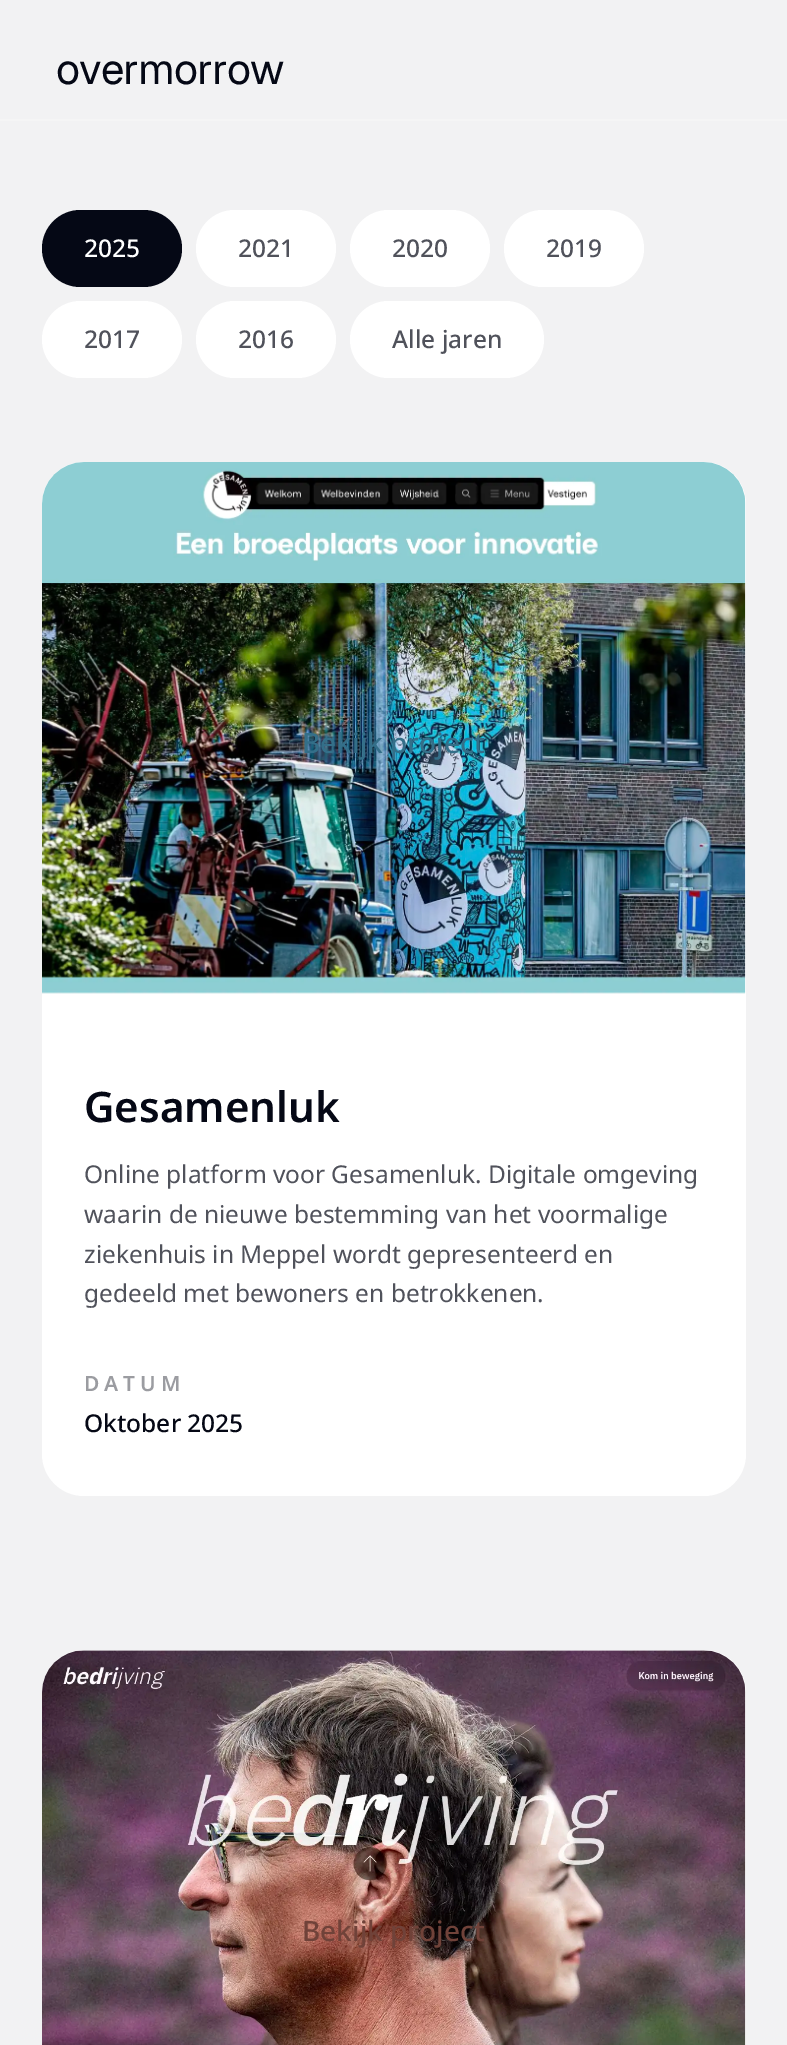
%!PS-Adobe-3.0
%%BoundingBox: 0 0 787 2045
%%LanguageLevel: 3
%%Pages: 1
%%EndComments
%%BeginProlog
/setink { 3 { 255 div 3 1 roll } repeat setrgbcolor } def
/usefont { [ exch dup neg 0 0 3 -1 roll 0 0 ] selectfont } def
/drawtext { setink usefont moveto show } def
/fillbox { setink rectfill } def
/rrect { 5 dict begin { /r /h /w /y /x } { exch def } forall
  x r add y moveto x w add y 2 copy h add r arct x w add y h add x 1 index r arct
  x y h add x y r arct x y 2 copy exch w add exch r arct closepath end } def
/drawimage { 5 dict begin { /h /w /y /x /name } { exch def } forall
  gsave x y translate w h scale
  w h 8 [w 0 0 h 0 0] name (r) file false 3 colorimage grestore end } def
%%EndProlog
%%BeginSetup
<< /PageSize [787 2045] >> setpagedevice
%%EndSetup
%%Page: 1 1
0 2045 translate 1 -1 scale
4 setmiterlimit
0 0 787 2045 242 242 243 fillbox
0 119 787 2 245 245 245 fillbox
/Geist-Regular 42 usefont
5 8 21 setink
56 84 moveto -1 0 (overmorrow) ashow
42 210 140 77 38.5 rrect fill
(2025) 84 257 /NotoSans-Medium 24.5 255 255 255 drawtext
196 210 140 77 38.5 rrect fill
(2021) 238 257 /NotoSans-Medium 24.5 80 82 91 drawtext
255 255 255 setink
350 210 140 77 38.5 rrect fill
(2020) 392 257 /NotoSans-Medium 24.5 80 82 91 drawtext
255 255 255 setink
504 210 140 77 38.5 rrect fill
(2019) 546 257 /NotoSans-Medium 24.5 80 82 91 drawtext
255 255 255 setink
42 301 140 77 38.5 rrect fill
(2017) 84 348 /NotoSans-Medium 24.5 80 82 91 drawtext
255 255 255 setink
196 301 140 77 38.5 rrect fill
(2016) 238 348 /NotoSans-Medium 24.5 80 82 91 drawtext
255 255 255 setink
350 301 194 77 38.5 rrect fill
(Alle jaren) 392 348 /NotoSans-Medium 24.5 80 82 91 drawtext
255 255 255 setink
42 462 704 1034 42 rrect fill
(assets/img1.rgb) 42 462 704 532 drawimage
(Bekijk project) 302 753 /NotoSans-Medium 28 52 111 137 drawtext
(Gesamenluk) 84 1122 /NotoSans-SemiBold 42 5 8 21 drawtext
(Online platform voor Gesamenluk. Digitale omgeving) 84 1183 /NotoSans-Regular 24.5 80 82 91 drawtext
(waarin de nieuwe bestemming van het voormalige) 84 1223 /NotoSans-Regular 24.5 80 82 91 drawtext
(ziekenhuis in Meppel wordt gepresenteerd en) 84 1263 /NotoSans-Regular 24.5 80 82 91 drawtext
(gedeeld met bewoners en betrokkenen.) 84 1302 /NotoSans-Regular 24.5 80 82 91 drawtext
/NotoSans-SemiBold 21 usefont
155 156 161 setink
84 1391 moveto 5 0 (DATUM) ashow
(Oktober 2025) 84 1432 /NotoSans-Medium 24.5 5 8 21 drawtext
255 255 255 setink
42 1650 704 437 42 rrect fill
(assets/img2.rgb) 42 1650 704 395 drawimage
(Bekijk project) 302 1941 /NotoSans-Medium 28 112 66 57 drawtext
showpage
%%EOF
